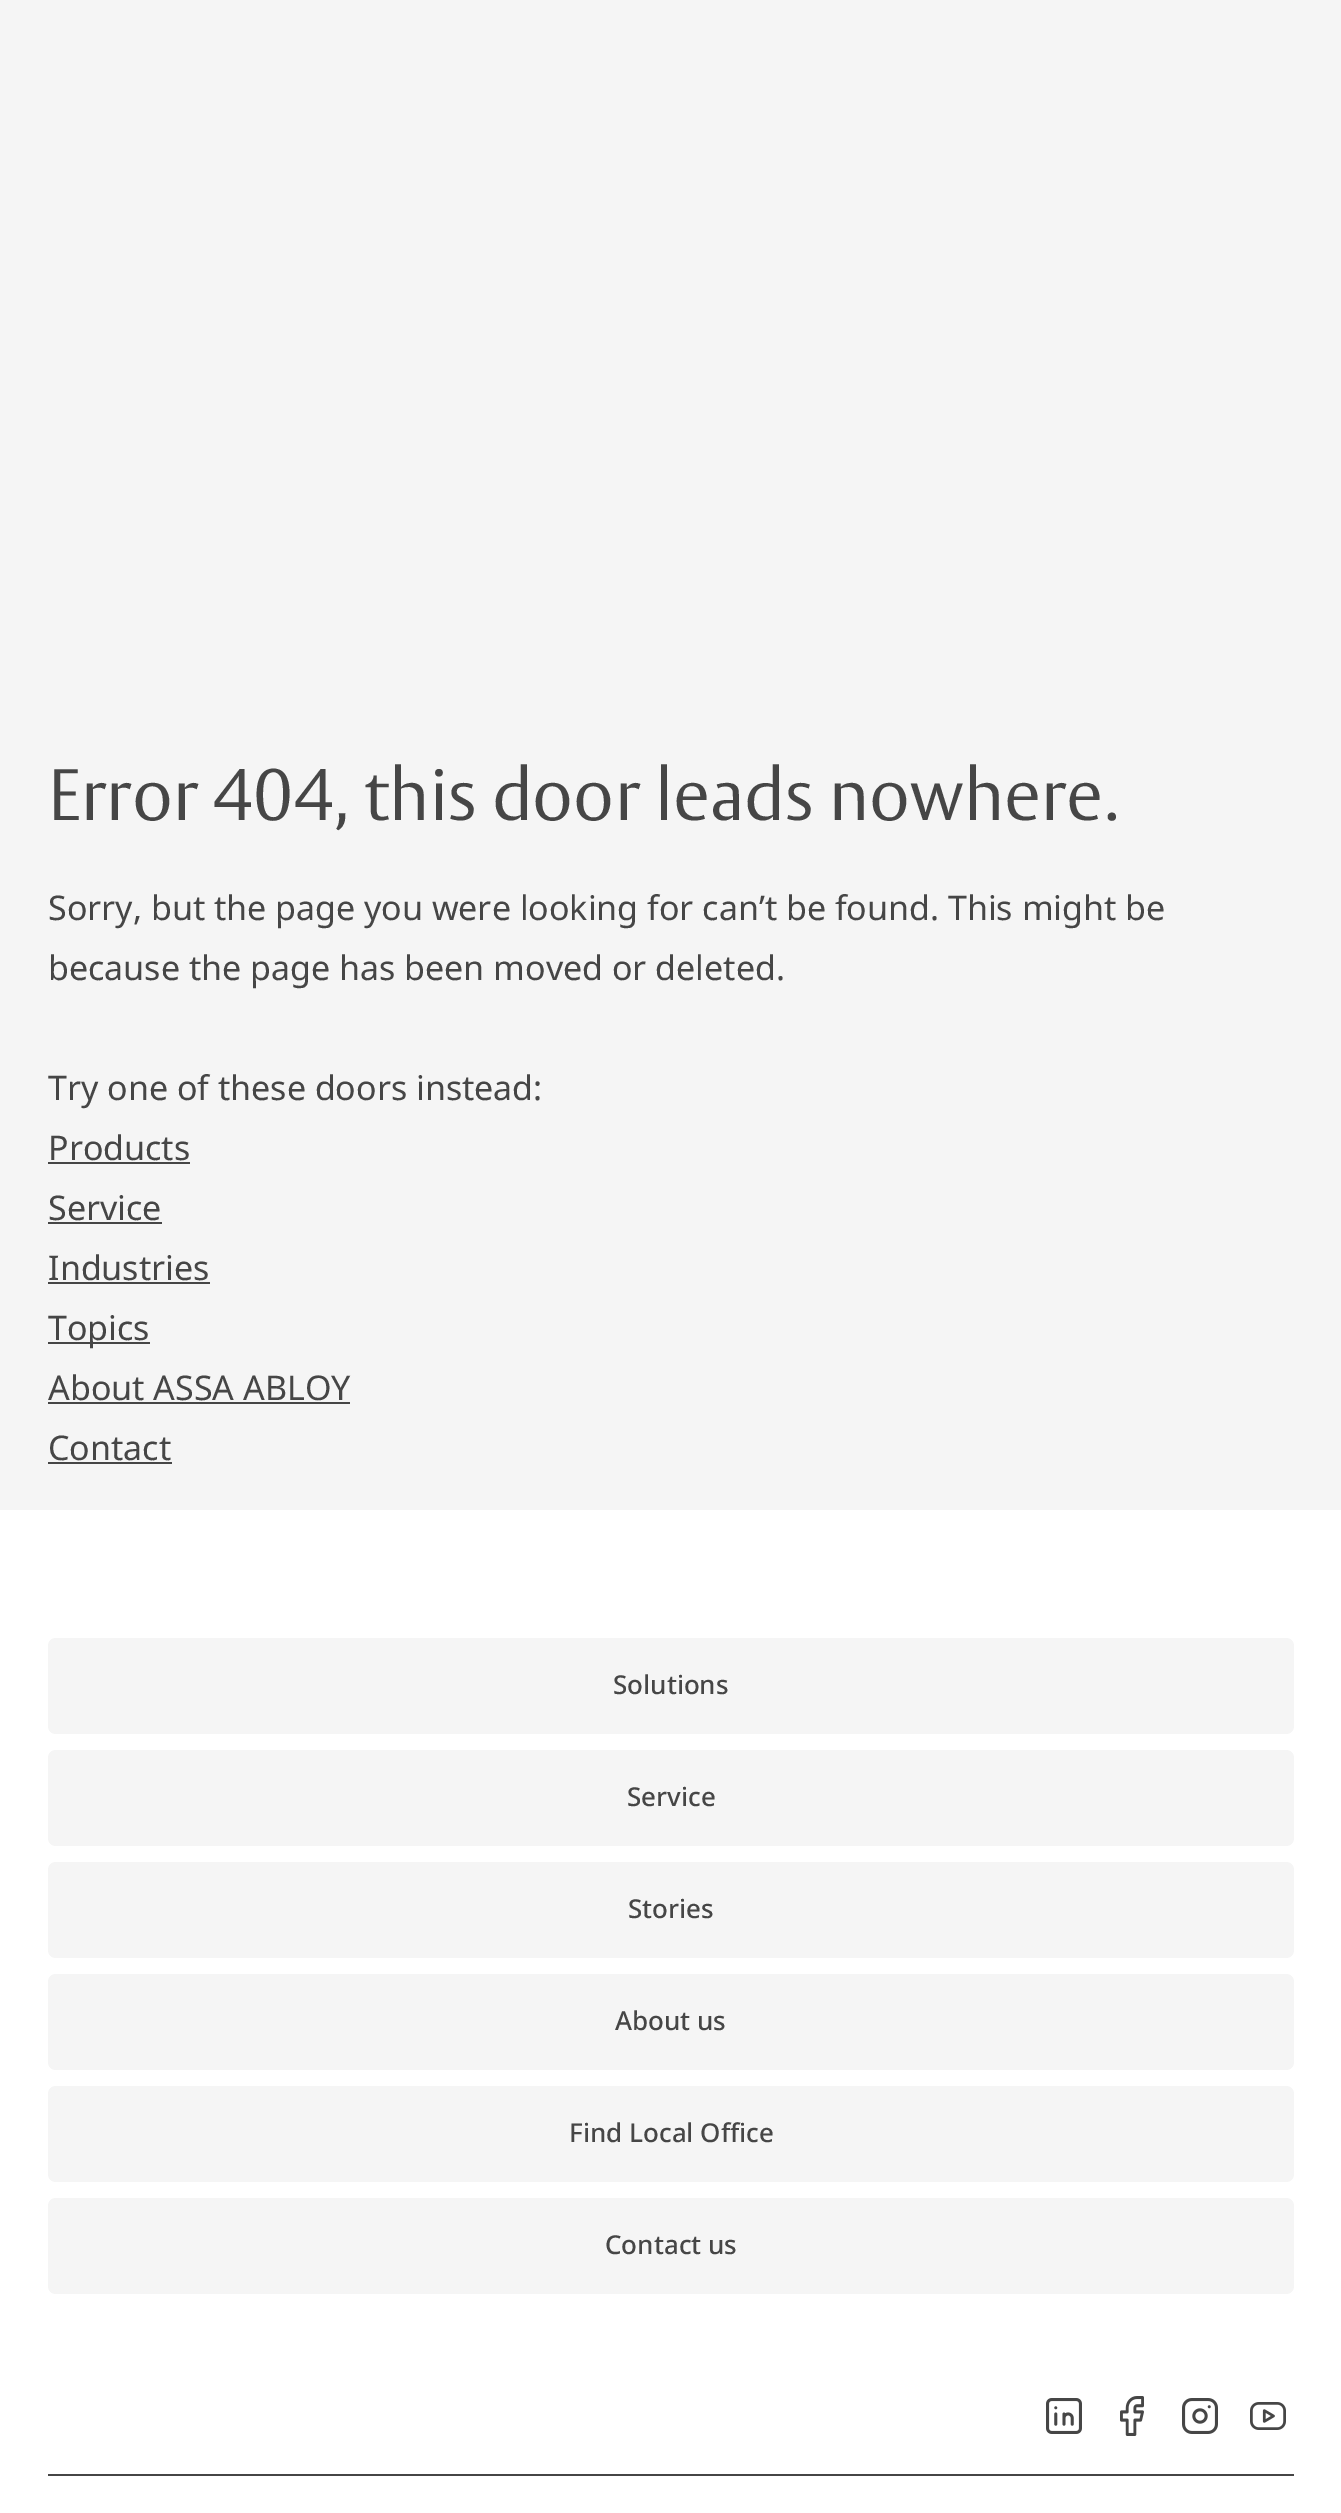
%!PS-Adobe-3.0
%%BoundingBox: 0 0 1341 2513
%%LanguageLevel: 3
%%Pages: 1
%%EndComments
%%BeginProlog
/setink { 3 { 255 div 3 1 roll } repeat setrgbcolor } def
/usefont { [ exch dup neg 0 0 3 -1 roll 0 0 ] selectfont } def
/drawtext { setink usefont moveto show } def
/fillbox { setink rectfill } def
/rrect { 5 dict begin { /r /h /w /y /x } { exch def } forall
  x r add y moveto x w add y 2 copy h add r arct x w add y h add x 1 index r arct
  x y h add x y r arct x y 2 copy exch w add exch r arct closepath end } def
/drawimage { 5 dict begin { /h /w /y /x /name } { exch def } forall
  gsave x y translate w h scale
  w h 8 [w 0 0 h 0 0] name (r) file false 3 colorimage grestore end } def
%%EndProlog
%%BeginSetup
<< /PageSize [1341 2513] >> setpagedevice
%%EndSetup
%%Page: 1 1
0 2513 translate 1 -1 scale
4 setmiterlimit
0 0 1341 2513 255 255 255 fillbox
0 0 1341 1510 245 245 245 fillbox
(Error 404, this door leads nowhere.) 48 820 /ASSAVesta-Light 72 70 70 70 drawtext
(Sorry, but the page you were looking for can’t be found. This might be) 48 920 /NotoSans-Regular 34 70 70 70 drawtext
(because the page has been moved or deleted.) 48 980 /NotoSans-Regular 34 70 70 70 drawtext
(Try one of these doors instead:) 48 1100 /NotoSans-Regular 34 70 70 70 drawtext
(Products) 48 1160 /NotoSans-Regular 34 70 70 70 drawtext
48 1162 142 2 70 70 70 fillbox
(Service) 48 1220 /NotoSans-Regular 34 70 70 70 drawtext
48 1222 114 2 70 70 70 fillbox
(Industries) 48 1280 /NotoSans-Regular 34 70 70 70 drawtext
48 1282 162 2 70 70 70 fillbox
48 1342 102 2 70 70 70 fillbox
(Topics) 48 1340 /NotoSans-Regular 34 70 70 70 drawtext
(About ASSA ABLOY) 48 1400 /NotoSans-Regular 34 70 70 70 drawtext
48 1402 302 2 70 70 70 fillbox
(Contact) 48 1460 /NotoSans-Regular 34 70 70 70 drawtext
48 1462 124 2 70 70 70 fillbox
245 245 245 setink
48 1638 1246 96 8 rrect fill
(Solutions) 613 1694 /NotoSans-Medium 26 70 70 70 drawtext
245 245 245 setink
48 1750 1246 96 8 rrect fill
(Service) 627 1806 /NotoSans-Medium 26 70 70 70 drawtext
245 245 245 setink
48 1862 1246 96 8 rrect fill
(Stories) 628 1918 /NotoSans-Medium 26 70 70 70 drawtext
245 245 245 setink
48 1974 1246 96 8 rrect fill
(About us) 615 2030 /NotoSans-Medium 26 70 70 70 drawtext
245 245 245 setink
48 2086 1246 96 8 rrect fill
(Find Local Office) 569 2142 /NotoSans-Medium 26 70 70 70 drawtext
245 245 245 setink
48 2198 1246 96 8 rrect fill
(Contact us) 605 2254 /NotoSans-Medium 26 70 70 70 drawtext
(assets/img1.rgb) 1046 2398 36 36 drawimage
(assets/img2.rgb) 1120 2396 24 40 drawimage
(assets/img3.rgb) 1182 2398 36 36 drawimage
(assets/img4.rgb) 1250 2402 36 28 drawimage
48 2474 1246 2 70 70 70 fillbox
showpage
%%EOF
